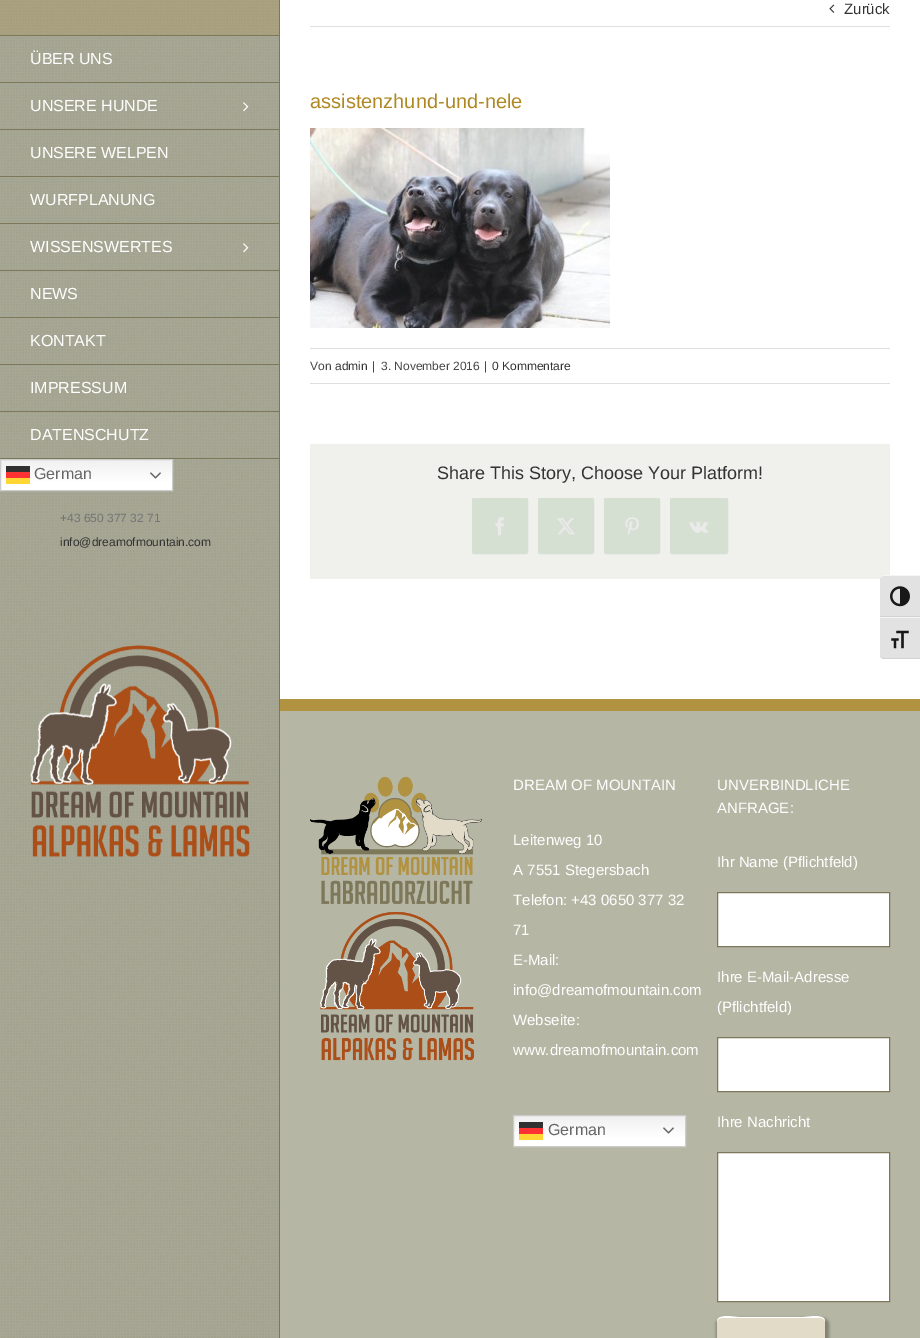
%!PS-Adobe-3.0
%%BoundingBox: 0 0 920 1338
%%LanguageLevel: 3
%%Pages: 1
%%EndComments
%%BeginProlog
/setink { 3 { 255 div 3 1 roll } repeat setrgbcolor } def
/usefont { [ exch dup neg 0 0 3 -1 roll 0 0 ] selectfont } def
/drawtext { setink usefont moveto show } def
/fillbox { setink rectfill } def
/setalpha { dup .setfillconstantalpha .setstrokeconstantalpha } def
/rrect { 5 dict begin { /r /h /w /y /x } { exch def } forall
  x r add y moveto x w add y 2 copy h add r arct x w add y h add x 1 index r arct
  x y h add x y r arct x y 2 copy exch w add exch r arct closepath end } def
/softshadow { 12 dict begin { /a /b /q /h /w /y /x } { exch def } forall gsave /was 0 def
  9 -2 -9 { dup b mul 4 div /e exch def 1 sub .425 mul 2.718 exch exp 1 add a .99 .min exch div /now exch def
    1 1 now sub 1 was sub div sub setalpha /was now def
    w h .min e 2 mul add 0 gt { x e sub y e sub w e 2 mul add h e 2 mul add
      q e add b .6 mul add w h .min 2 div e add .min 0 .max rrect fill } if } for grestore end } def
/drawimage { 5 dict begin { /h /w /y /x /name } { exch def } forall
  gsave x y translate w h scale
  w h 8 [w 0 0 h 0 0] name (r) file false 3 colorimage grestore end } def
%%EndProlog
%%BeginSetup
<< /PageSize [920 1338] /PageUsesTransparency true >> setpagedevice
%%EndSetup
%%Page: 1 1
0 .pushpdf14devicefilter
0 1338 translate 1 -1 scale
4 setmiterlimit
0 0 920 1338 255 255 255 fillbox
(assets/img1.rgb) 0 0 279 1338 drawimage
0.61 setalpha
0 0 279 1338 124 124 94 fillbox
1 setalpha
279 0 1 1338 126 120 90 fillbox
0.25 setalpha
0 0 279 35 177 146 65 fillbox
1 setalpha
0 35 279 1 126 120 90 fillbox
0 82 279 1 126 120 90 fillbox
(ÜBER UNS) 30 64 /LiberationSans-Regular 16 255 255 255 drawtext
0 129 279 1 126 120 90 fillbox
(UNSERE HUNDE) 30 111 /LiberationSans-Regular 16 255 255 255 drawtext
(assets/img2.rgb) 243 102 6 10 drawimage
0 176 279 1 126 120 90 fillbox
(UNSERE WELPEN) 30 158 /LiberationSans-Regular 16 255 255 255 drawtext
0 223 279 1 126 120 90 fillbox
(WURFPLANUNG) 30 205 /LiberationSans-Regular 16 255 255 255 drawtext
0 270 279 1 126 120 90 fillbox
(WISSENSWERTES) 30 252 /LiberationSans-Regular 16 255 255 255 drawtext
(assets/img3.rgb) 243 243 6 10 drawimage
0 317 279 1 126 120 90 fillbox
(NEWS) 30 299 /LiberationSans-Regular 16 255 255 255 drawtext
0 364 279 1 126 120 90 fillbox
(KONTAKT) 30 346 /LiberationSans-Regular 16 255 255 255 drawtext
0 411 279 1 126 120 90 fillbox
(IMPRESSUM) 30 393 /LiberationSans-Regular 16 255 255 255 drawtext
0 458 279 1 126 120 90 fillbox
(DATENSCHUTZ) 30 440 /LiberationSans-Regular 16 255 255 255 drawtext
gsave 1 460 moveto 172 460 lineto 172 490 lineto 1 490 lineto closepath clip newpath
<< /ShadingType 2 /ColorSpace /DeviceRGB /Coords [87 459 87 491] /Extend [true true] /Function << /FunctionType 3 /Domain [0 1] /Functions [<< /FunctionType 2 /Domain [0 1] /C0 [0.937 0.937 0.937] /C1 [1 1 1] /N 1 >> << /FunctionType 2 /Domain [0 1] /C0 [1 1 1] /C1 [1 1 1] /N 1 >>] /Bounds [0.7] /Encode [0 1 0 1] >> >> shfill grestore
204 204 204 setink
0.5 459.5 172 31 rectstroke
0.8 setalpha
6 466 24 6 0 0 0 fillbox
1 setalpha
(German) 34 479 /LiberationSans-Regular 16 102 102 102 drawtext
0.8 setalpha
6 472 24 6 255 0 0 fillbox
1 setalpha
(assets/img4.rgb) 150 472 11 7 drawimage
6 478 24 6 255 214 51 fillbox
(+43 650 377 32 71) 60 522 /LiberationSans-Regular 12 116 116 116 drawtext
(info@dreamofmountain.com) 60 546 /LiberationSans-Regular 12 51 51 51 drawtext
(assets/img5.rgb) 30 645 220 212 drawimage
310 26 580 1 224 222 222 fillbox
(assets/img6.rgb) 829 4 6 9 drawimage
(Zurück) 844 14 /LiberationSans-Regular 15 51 51 51 drawtext
(assistenzhund-und-nele) 310 108 /LiberationSans-Regular 20 175 136 36 drawtext
(assets/img7.rgb) 310 128 300 200 drawimage
310 348 580 1 224 222 222 fillbox
310 383 580 1 224 222 222 fillbox
(Von) 310 370 /LiberationSans-Regular 12 71 71 71 drawtext
(admin) 335 370 /LiberationSans-Regular 12 51 51 51 drawtext
(|) 372 370 /LiberationSans-Regular 12 71 71 71 drawtext
(3. November 2016) 381 370 /LiberationSans-Regular 12 71 71 71 drawtext
(|) 484 370 /LiberationSans-Regular 12 71 71 71 drawtext
(0 Kommentare) 492 370 /LiberationSans-Regular 12 51 51 51 drawtext
310 444 580 135 240 240 237 fillbox
(Share This Story, Choose Your Platform!) 437 479 /LiberationSans-Regular 18 51 51 51 drawtext
214 224 210 setink
472.5 498.5 55 55 1.5 rrect gsave fill grestore
stroke
(assets/img8.rgb) 495 517 9 19 drawimage
538.5 498.5 55 55 1.5 rrect gsave fill grestore
stroke
(assets/img9.rgb) 557 518 18 17 drawimage
604.5 498.5 55 55 1.5 rrect gsave fill grestore
stroke
(assets/img10.rgb) 625 517 14 18 drawimage
670.5 498.5 57 55 1.5 rrect gsave fill grestore
stroke
(assets/img11.rgb) 689 522 19 11 drawimage
280 711 640 627 182 182 165 fillbox
280 699 640 12 177 146 65 fillbox
(assets/img12.rgb) 310 776 172 285 drawimage
(DREAM OF MOUNTAIN) 513 790 /LiberationSans-Regular 15 255 255 255 drawtext
(Leitenweg 10) 513 845 /LiberationSans-Regular 15 255 255 255 drawtext
(A 7551 Stegersbach) 513 875 /LiberationSans-Regular 15 255 255 255 drawtext
(Telefon: +43 0650 377 32) 513 905 /LiberationSans-Regular 15 255 255 255 drawtext
(71) 513 935 /LiberationSans-Regular 15 255 255 255 drawtext
(E-Mail:) 513 965 /LiberationSans-Regular 15 255 255 255 drawtext
(info@dreamofmountain.com) 513 995 /LiberationSans-Regular 15 255 255 255 drawtext
(Webseite:) 513 1025 /LiberationSans-Regular 15 255 255 255 drawtext
(www.dreamofmountain.com) 513 1055 /LiberationSans-Regular 15 255 255 255 drawtext
gsave 514 1116 moveto 685 1116 lineto 685 1146 lineto 514 1146 lineto closepath clip newpath
<< /ShadingType 2 /ColorSpace /DeviceRGB /Coords [600 1115 600 1147] /Extend [true true] /Function << /FunctionType 3 /Domain [0 1] /Functions [<< /FunctionType 2 /Domain [0 1] /C0 [0.937 0.937 0.937] /C1 [1 1 1] /N 1 >> << /FunctionType 2 /Domain [0 1] /C0 [1 1 1] /C1 [1 1 1] /N 1 >>] /Bounds [0.7] /Encode [0 1 0 1] >> >> shfill grestore
204 204 204 setink
513.5 1115.5 172 31 rectstroke
0.8 setalpha
519 1122 24 6 0 0 0 fillbox
1 setalpha
(German) 548 1135 /LiberationSans-Regular 16 102 102 102 drawtext
(assets/img13.rgb) 663 1127 11 7 drawimage
0.8 setalpha
519 1128 24 6 255 0 0 fillbox
1 setalpha
519 1134 24 6 255 214 51 fillbox
(UNVERBINDLICHE) 717 790 /LiberationSans-Regular 15 255 255 255 drawtext
(ANFRAGE:) 717 813 /LiberationSans-Regular 15 255 255 255 drawtext
(Ihr Name \(Pflichtfeld\)) 717 867 /LiberationSans-Regular 15 255 255 255 drawtext
717.5 892.5 moveto 889.5 892.5 lineto 889.5 946.5 lineto 717.5 946.5 lineto closepath gsave fill grestore
126 120 90 setink
stroke
(Ihre E-Mail-Adresse) 717 982 /LiberationSans-Regular 15 255 255 255 drawtext
(\(Pflichtfeld\)) 717 1012 /LiberationSans-Regular 15 255 255 255 drawtext
717.5 1037.5 moveto 889.5 1037.5 lineto 889.5 1091.5 lineto 717.5 1091.5 lineto closepath gsave fill grestore
126 120 90 setink
stroke
(Ihre Nachricht) 717 1127 /LiberationSans-Regular 15 255 255 255 drawtext
717.5 1152.5 moveto 889.5 1152.5 lineto 889.5 1301.5 lineto 717.5 1301.5 lineto closepath gsave fill grestore
126 120 90 setink
stroke
0 0 0 setink
716 1318 113 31 6 1.5 0.3 softshadow
226 219 199 setink
717 1317 108 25 4 rrect fill
255 255 255 setink
721 1318 moveto 821 1318 lineto 823 1318 825 1320 825 1322 curveto 825 1313 808 1317 804 1317 curveto 738 1317 lineto 734 1317 717 1313 717 1322 curveto 717 1320 719 1318 721 1318 curveto closepath fill
226 226 226 setink
884 575 moveto 920 575 lineto 920 617 lineto 880 617 lineto 880 579 lineto 880 577 882 575 884 575 curveto closepath fill
245 245 245 setink
884 576 moveto 920 576 lineto 920 575 lineto 884 575 lineto 882 575 880 577 880 579 curveto 880 577 882 576 884 576 curveto closepath fill
880 616 40 1 210 210 210 fillbox
(assets/img14.rgb) 890 586 20 21 drawimage
226 226 226 setink
880 617 moveto 920 617 lineto 920 659 lineto 884 659 lineto 882 659 880 657 880 655 curveto closepath fill
880 617 40 1 245 245 245 fillbox
210 210 210 setink
920 659 moveto 920 658 lineto 884 658 lineto 882 658 880 657 880 655 curveto 880 657 882 659 884 659 curveto closepath fill
(assets/img15.rgb) 891 630 18 19 drawimage
.poppdf14devicefilter showpage
%%EOF
